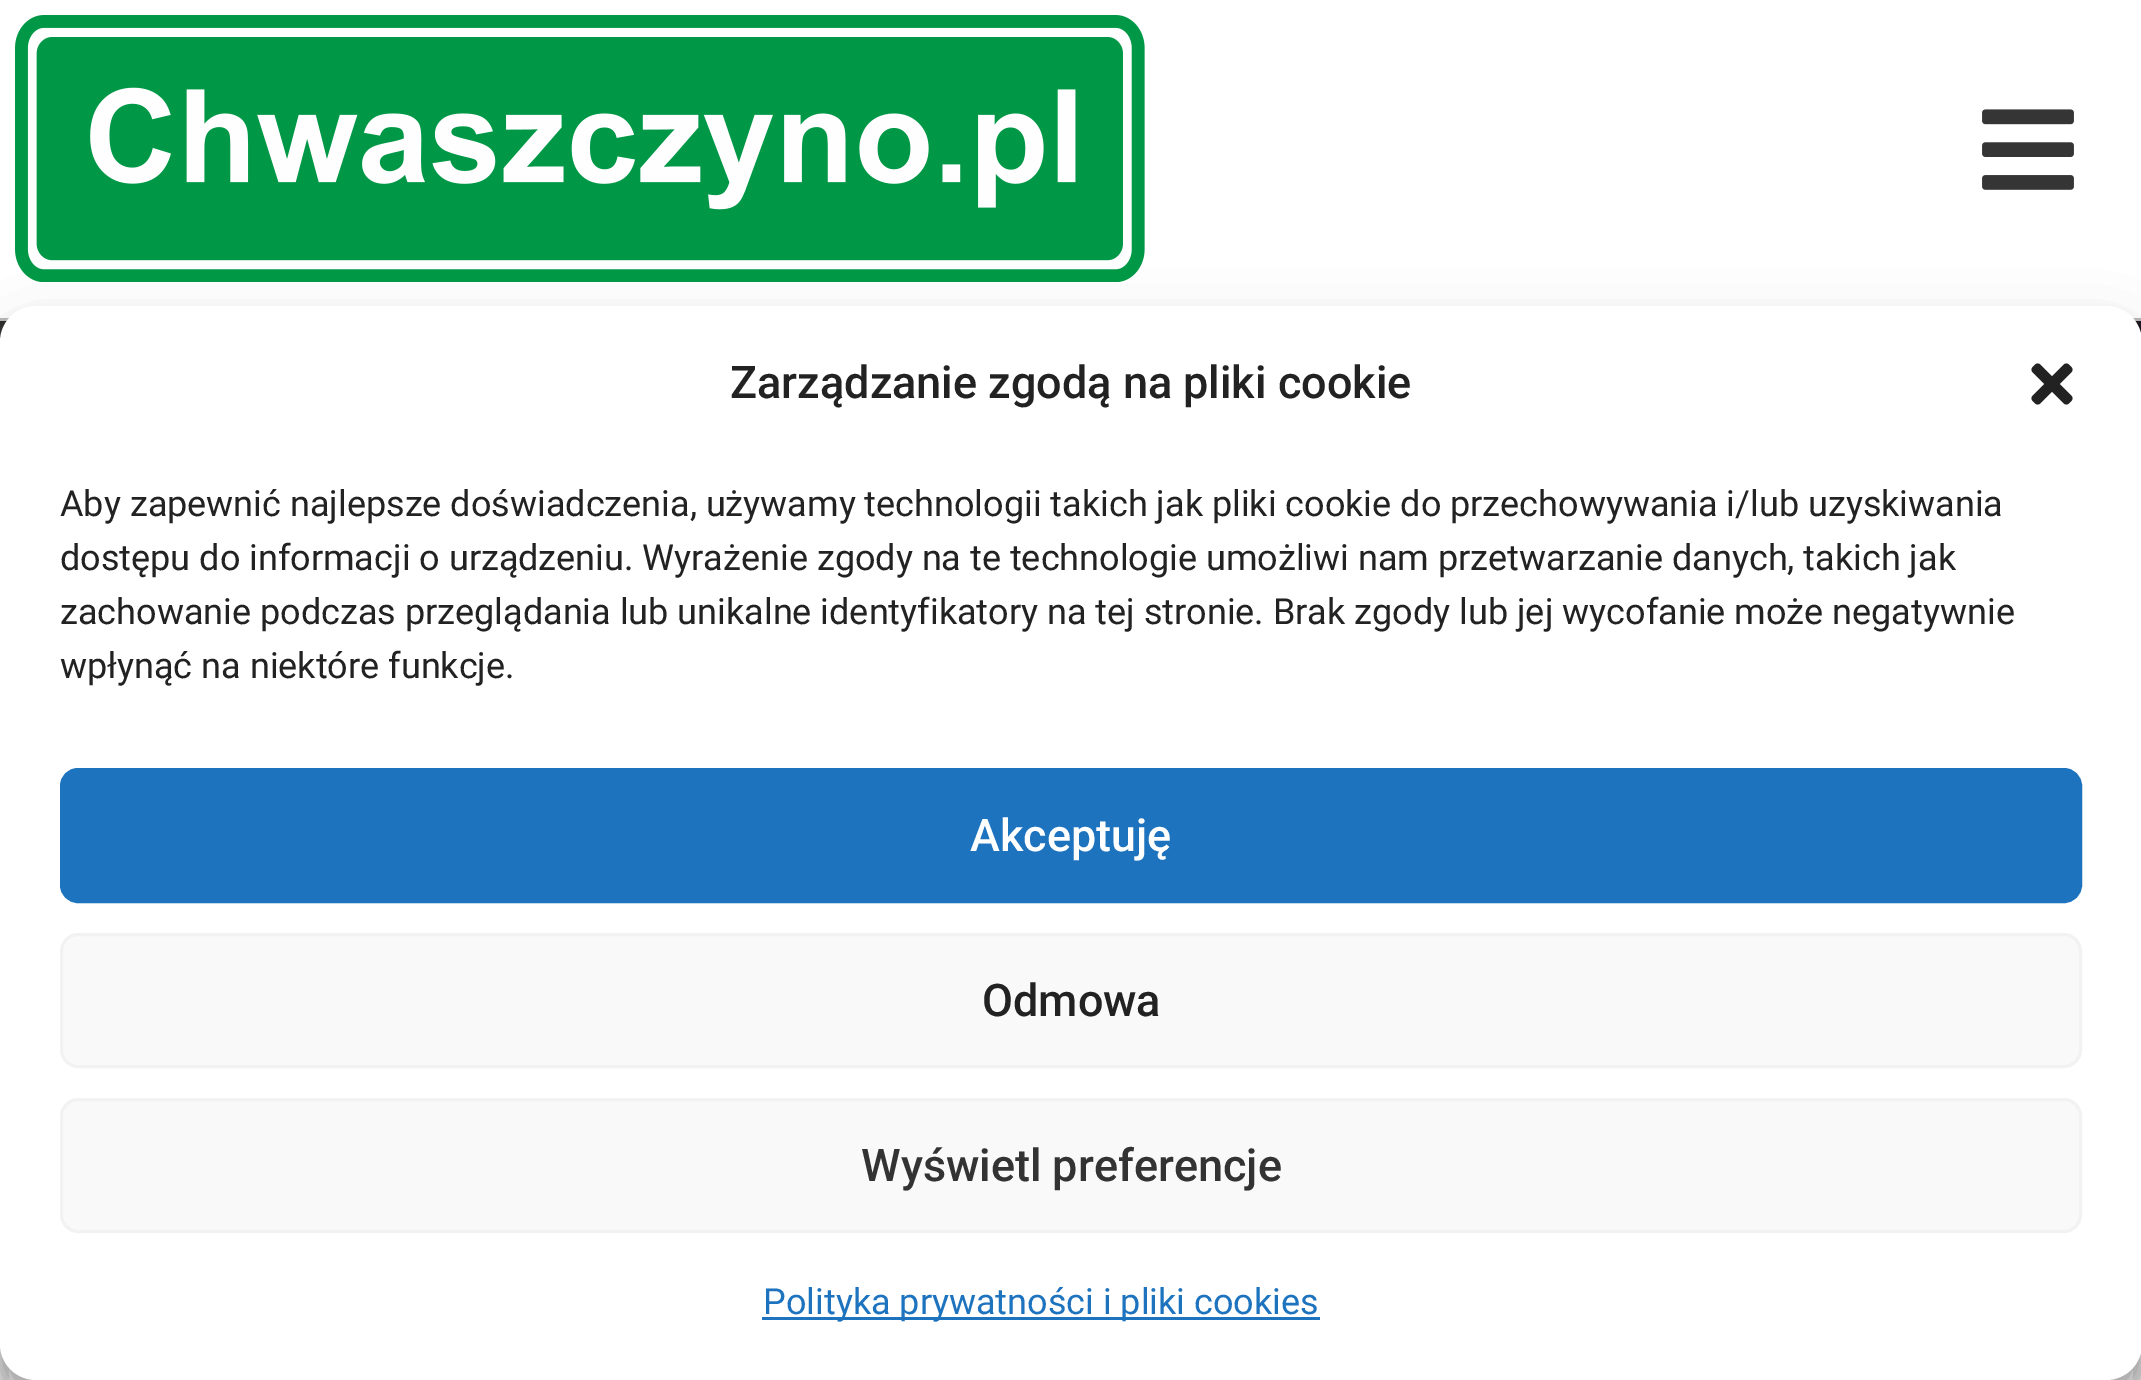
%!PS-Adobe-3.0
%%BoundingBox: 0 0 2141 1380
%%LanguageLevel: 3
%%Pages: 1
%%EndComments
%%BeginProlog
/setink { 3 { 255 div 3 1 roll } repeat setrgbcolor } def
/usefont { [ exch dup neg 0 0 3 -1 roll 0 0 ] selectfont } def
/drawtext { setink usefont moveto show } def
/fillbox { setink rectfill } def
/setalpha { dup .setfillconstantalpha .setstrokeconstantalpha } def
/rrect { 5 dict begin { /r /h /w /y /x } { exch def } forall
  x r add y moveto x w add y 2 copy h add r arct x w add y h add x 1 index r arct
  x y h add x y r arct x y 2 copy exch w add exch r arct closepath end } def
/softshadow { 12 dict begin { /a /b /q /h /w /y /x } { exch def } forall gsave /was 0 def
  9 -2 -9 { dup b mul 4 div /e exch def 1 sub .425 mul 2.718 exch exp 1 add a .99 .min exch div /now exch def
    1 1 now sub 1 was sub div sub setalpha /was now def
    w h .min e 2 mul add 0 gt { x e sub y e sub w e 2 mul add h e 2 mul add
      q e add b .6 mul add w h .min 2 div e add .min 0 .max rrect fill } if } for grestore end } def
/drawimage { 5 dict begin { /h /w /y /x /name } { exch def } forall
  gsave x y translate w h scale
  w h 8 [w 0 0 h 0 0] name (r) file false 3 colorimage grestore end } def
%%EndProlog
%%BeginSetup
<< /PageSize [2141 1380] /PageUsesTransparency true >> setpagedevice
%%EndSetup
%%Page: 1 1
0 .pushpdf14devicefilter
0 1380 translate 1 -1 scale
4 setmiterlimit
0 0 2141 1380 245 245 245 fillbox
0 0 2141 318 255 255 255 fillbox
0 318 2141 3 185 185 185 fillbox
(assets/img1.rgb) 15 15 1130 267 drawimage
(assets/img2.rgb) 1982 109 92 81 drawimage
(assets/img3.rgb) 0 321 2141 21 drawimage
0 0 0 setink
9 1182 2124 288 0 30 0.09 softshadow
9 1367 2124 13 255 255 255 fillbox
128 128 128 setink
1932 1158 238 180 6 7.5 1 softshadow
0 0 0 setink
0 324 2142 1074 36 9 0.23 softshadow
0 336 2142 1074 36 30 0.19 softshadow
255 255 255 setink
0 306 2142 1074 36 rrect fill
(Zarządzanie zgodą na pliki cookie) 730 398 /Roboto-Medium 45 34 34 34 drawtext
(assets/img4.rgb) 2031 363 42 42 drawimage
(Aby zapewnić najlepsze doświadczenia, używamy technologii takich jak pliki cookie do przechowywania i/lub uzyskiwania) 60 516 /Roboto-Regular 36 34 34 34 drawtext
(dostępu do informacji o urządzeniu. Wyrażenie zgody na te technologie umożliwi nam przetwarzanie danych, takich jak) 60 570 /Roboto-Regular 36 34 34 34 drawtext
(zachowanie podczas przeglądania lub unikalne identyfikatory na tej stronie. Brak zgody lub jej wycofanie może negatywnie) 60 624 /Roboto-Regular 36 34 34 34 drawtext
(wpłynąć na niektóre funkcje.) 60 678 /Roboto-Regular 36 34 34 34 drawtext
30 115 190 setink
61.5 769.5 2019 132 16.5 rrect gsave fill grestore
3 setlinewidth
stroke
(Akceptuję) 970 851 /Roboto-Medium 45 255 255 255 drawtext
249 249 249 setink
61.5 934.5 2019 132 16.5 rrect gsave fill grestore
242 242 242 setink
stroke
(Odmowa) 982 1016 /Roboto-Medium 45 34 34 34 drawtext
249 249 249 setink
61.5 1099.5 2019 132 16.5 rrect gsave fill grestore
242 242 242 setink
stroke
(Wyświetl preferencje) 861 1181 /Roboto-Medium 45 51 51 51 drawtext
762 1317 558 3 30 115 190 fillbox
(Polityka prywatności i pliki cookies) 763 1314 /Roboto-Regular 36 30 115 190 drawtext
.poppdf14devicefilter showpage
%%EOF
